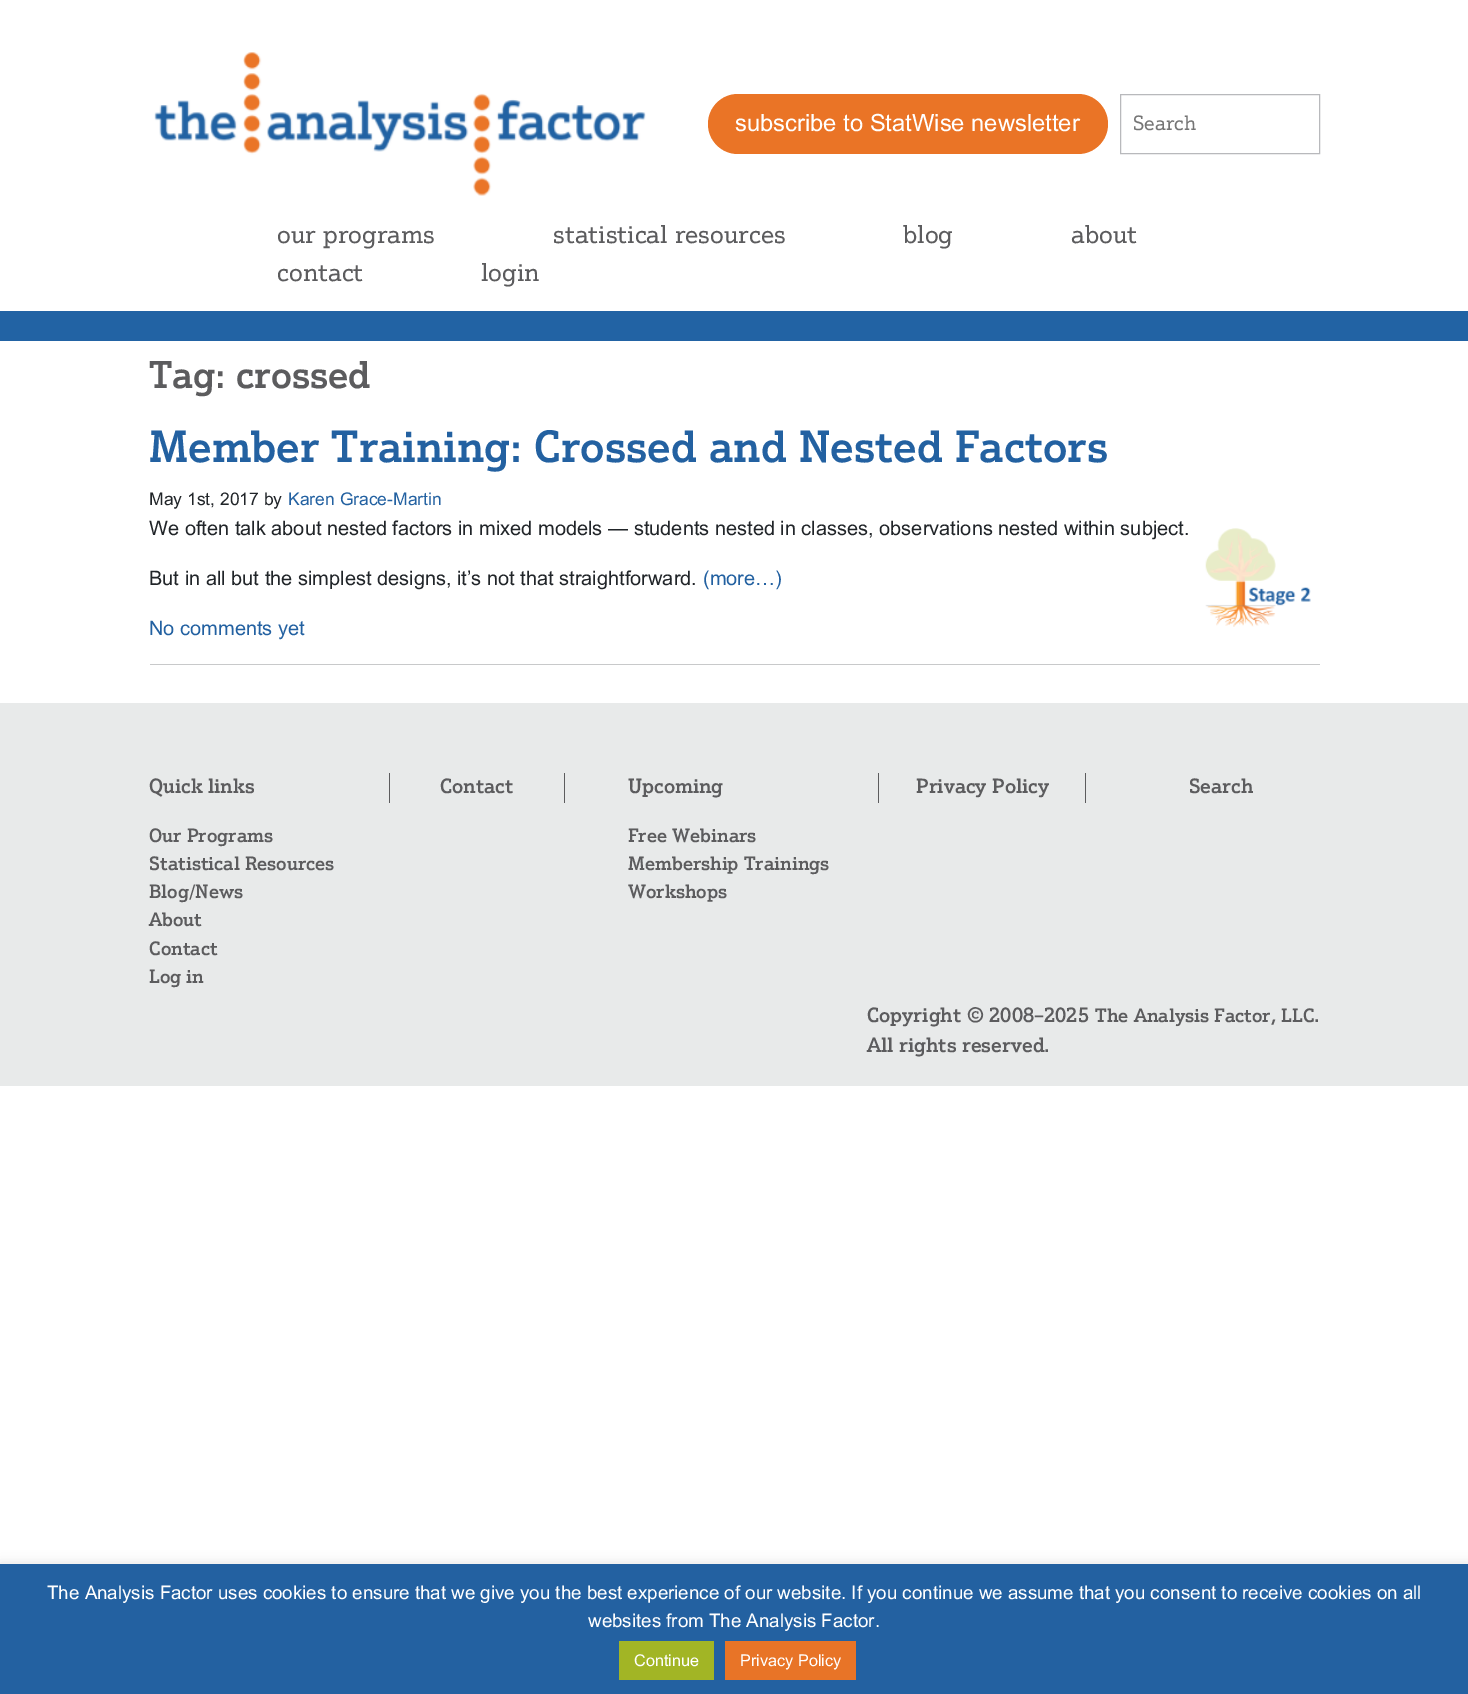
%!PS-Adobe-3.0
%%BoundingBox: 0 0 1468 1694
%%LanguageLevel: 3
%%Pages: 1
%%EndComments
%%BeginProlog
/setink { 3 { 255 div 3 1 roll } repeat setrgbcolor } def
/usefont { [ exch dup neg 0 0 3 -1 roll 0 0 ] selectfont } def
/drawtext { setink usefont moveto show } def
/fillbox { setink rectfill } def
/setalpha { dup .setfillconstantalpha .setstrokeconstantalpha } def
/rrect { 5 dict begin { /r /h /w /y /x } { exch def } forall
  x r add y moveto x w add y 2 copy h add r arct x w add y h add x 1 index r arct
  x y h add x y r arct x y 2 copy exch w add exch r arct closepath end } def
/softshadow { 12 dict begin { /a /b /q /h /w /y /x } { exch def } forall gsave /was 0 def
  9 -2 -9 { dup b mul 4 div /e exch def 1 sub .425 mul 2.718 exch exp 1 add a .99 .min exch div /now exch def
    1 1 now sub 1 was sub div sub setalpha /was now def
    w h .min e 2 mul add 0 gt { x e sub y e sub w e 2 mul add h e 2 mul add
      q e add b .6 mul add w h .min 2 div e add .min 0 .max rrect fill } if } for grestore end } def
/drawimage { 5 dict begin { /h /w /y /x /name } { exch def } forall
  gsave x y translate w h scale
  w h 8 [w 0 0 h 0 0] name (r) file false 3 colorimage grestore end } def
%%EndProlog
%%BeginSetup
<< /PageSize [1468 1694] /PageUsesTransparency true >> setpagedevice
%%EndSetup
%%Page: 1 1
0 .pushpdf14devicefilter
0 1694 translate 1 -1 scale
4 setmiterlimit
0 0 1468 1694 255 255 255 fillbox
(assets/img1.rgb) 154 52 492 144 drawimage
234 116 38 setink
708 94 400 60 30 rrect fill
(subscribe to StatWise newsletter) 735 131 /Arial-Regular 23.75 255 255 255 drawtext
184 185 188 setink
1120.5 94.5 199 59 rectstroke
(Search) 1133 130 /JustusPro-Regular 20 117 117 117 drawtext
(our programs) 277 243 /JustusPro-Regular 25 92 92 94 drawtext
(statistical resources) 553 243 /JustusPro-Regular 25 92 92 94 drawtext
(blog) 903 243 /JustusPro-Regular 25 92 92 94 drawtext
(about) 1071 243 /JustusPro-Regular 25 92 92 94 drawtext
(contact) 277 281 /JustusPro-Regular 25 92 92 94 drawtext
(login) 481 281 /JustusPro-Regular 25 92 92 94 drawtext
0 311 1468 30 34 99 164 fillbox
(Tag: crossed) 149 388 /JustusPro-Medium 37.5 92 92 94 drawtext
(Member Training: Crossed and Nested Factors) 149 462 /JustusPro-Medium 43.75 35 97 161 drawtext
(May 1st, 2017 by) 149 505 /Arial-Regular 17.5 33 37 41 drawtext
(Karen Grace-Martin) 288 505 /Arial-Regular 17.5 35 97 161 drawtext
(We often talk about nested factors in mixed models — students nested in classes, observations nested within subject.) 149 535 /Arial-Regular 20 33 37 41 drawtext
(assets/img2.rgb) 1205 528 106 99 drawimage
(But in all but the simplest designs, it’s not that straightforward.) 149 585 /Arial-Regular 20 33 37 41 drawtext
(\(more…\)) 703 585 /Arial-Regular 20 35 97 161 drawtext
(No comments yet) 149 635 /Arial-Regular 20 35 97 161 drawtext
150 664 1170 1 200 201 202 fillbox
0 703 1468 383 232 234 234 fillbox
(Quick links) 149 793 /JustusPro-Medium 20 92 92 94 drawtext
(Our Programs) 149 842 /JustusPro-Medium 18.75 92 92 94 drawtext
(Statistical Resources) 149 870 /JustusPro-Medium 18.75 92 92 94 drawtext
(Blog/News) 149 898 /JustusPro-Medium 18.75 92 92 94 drawtext
(About) 149 926 /JustusPro-Medium 18.75 92 92 94 drawtext
(Contact) 149 955 /JustusPro-Medium 18.75 92 92 94 drawtext
(Log in) 149 983 /JustusPro-Medium 18.75 92 92 94 drawtext
564 773 1 30 92 92 94 fillbox
389 773 1 30 92 92 94 fillbox
(Contact) 440 793 /JustusPro-Medium 20 92 92 94 drawtext
(Upcoming) 628 793 /JustusPro-Medium 20 92 92 94 drawtext
(Free Webinars) 628 842 /JustusPro-Medium 18.75 92 92 94 drawtext
(Membership Trainings) 628 870 /JustusPro-Medium 18.75 92 92 94 drawtext
(Workshops) 628 898 /JustusPro-Medium 18.75 92 92 94 drawtext
1085 773 1 30 92 92 94 fillbox
878 773 1 30 92 92 94 fillbox
(Privacy Policy) 916 793 /JustusPro-Medium 20 92 92 94 drawtext
(Search) 1189 793 /JustusPro-Medium 20 92 92 94 drawtext
(Copyright © 2008–2025) 867 1022 /JustusPro-Medium 20 92 92 94 drawtext
(The Analysis Factor, LLC) 1095 1022 /JustusPro-Medium 18.75 92 92 94 drawtext
(.) 1314 1022 /JustusPro-Medium 20 92 92 94 drawtext
(All rights reserved.) 867 1052 /JustusPro-Medium 20 92 92 94 drawtext
172 171 171 setink
0 1563 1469 131 0 6 0.3 softshadow
0 1564 1468 130 35 97 161 fillbox
(The Analysis Factor uses cookies to ensure that we give you the best experience of our website. If you continue we assume that you consent to receive cookies on all) 47 1599 /Arial-Regular 18.75 255 255 255 drawtext
(websites from The Analysis Factor.) 588 1627 /Arial-Regular 18.75 255 255 255 drawtext
619 1641 95 39 162 181 37 fillbox
(Continue) 634 1666 /Arial-Regular 16.25 255 255 255 drawtext
725 1641 131 39 232 116 39 fillbox
(Privacy Policy) 740 1666 /Arial-Regular 16.25 255 255 255 drawtext
.poppdf14devicefilter showpage
%%EOF
